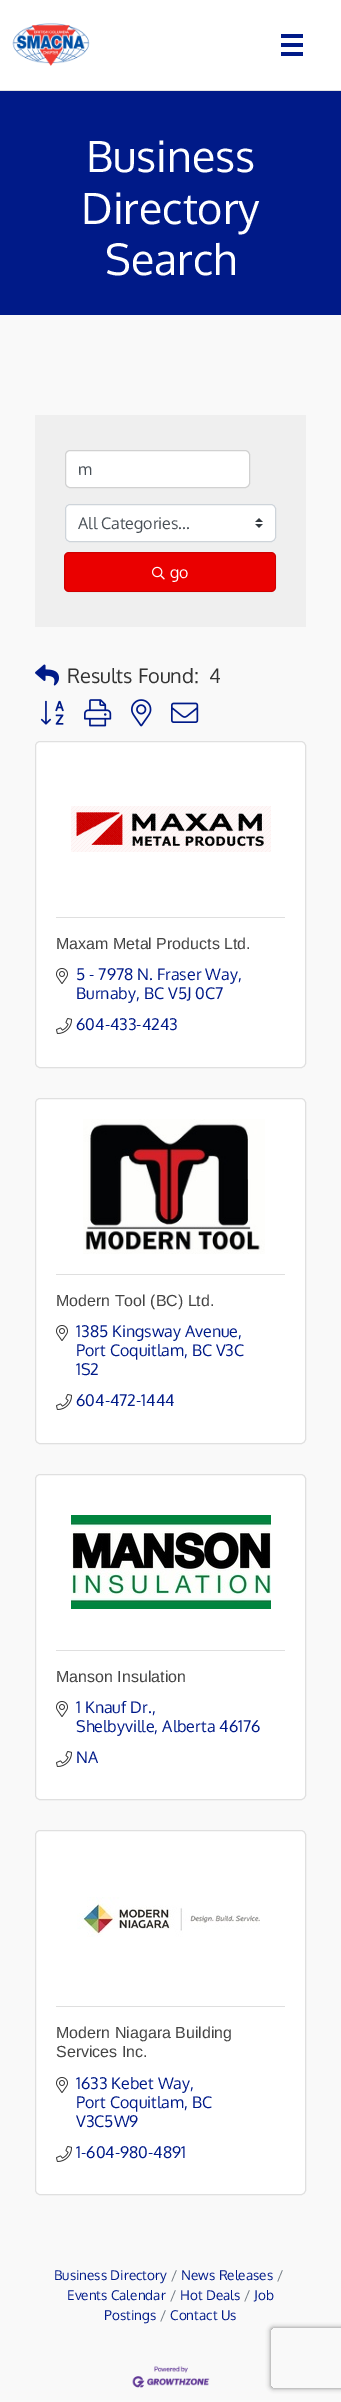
%!PS-Adobe-3.0
%%BoundingBox: 0 0 341 2402
%%LanguageLevel: 3
%%Pages: 1
%%EndComments
%%BeginProlog
/setink { 3 { 255 div 3 1 roll } repeat setrgbcolor } def
/usefont { [ exch dup neg 0 0 3 -1 roll 0 0 ] selectfont } def
/drawtext { setink usefont moveto show } def
/fillbox { setink rectfill } def
/setalpha { dup .setfillconstantalpha .setstrokeconstantalpha } def
/rrect { 5 dict begin { /r /h /w /y /x } { exch def } forall
  x r add y moveto x w add y 2 copy h add r arct x w add y h add x 1 index r arct
  x y h add x y r arct x y 2 copy exch w add exch r arct closepath end } def
/softshadow { 12 dict begin { /a /b /q /h /w /y /x } { exch def } forall gsave /was 0 def
  9 -2 -9 { dup b mul 4 div /e exch def 1 sub .425 mul 2.718 exch exp 1 add a .99 .min exch div /now exch def
    1 1 now sub 1 was sub div sub setalpha /was now def
    w h .min e 2 mul add 0 gt { x e sub y e sub w e 2 mul add h e 2 mul add
      q e add b .6 mul add w h .min 2 div e add .min 0 .max rrect fill } if } for grestore end } def
/drawimage { 5 dict begin { /h /w /y /x /name } { exch def } forall
  gsave x y translate w h scale
  w h 8 [w 0 0 h 0 0] name (r) file false 3 colorimage grestore end } def
%%EndProlog
%%BeginSetup
<< /PageSize [341 2402] /PageUsesTransparency true >> setpagedevice
%%EndSetup
%%Page: 1 1
0 .pushpdf14devicefilter
0 2402 translate 1 -1 scale
4 setmiterlimit
0 0 341 2402 249 249 249 fillbox
0 0 341 90 255 255 255 fillbox
0 90 341 1 225 225 225 fillbox
(assets/img1.rgb) 12 23 78 43 drawimage
281 34 22 4 0 26 136 fillbox
281 43 22 4 0 26 136 fillbox
281 52 22 4 0 26 136 fillbox
0 91 341 224 0 26 136 fillbox
(Business) 86 172 /Oxygen-Regular 43 255 255 255 drawtext
(Directory) 81 224 /Oxygen-Regular 43 255 255 255 drawtext
(Search) 105 275 /Oxygen-Regular 43 255 255 255 drawtext
35 415 271 212 239 239 239 fillbox
255 255 255 setink
65.5 450.5 184 37 4.5 rrect gsave fill grestore
209 209 209 setink
stroke
(m) 78 475 /Oxygen-Regular 16 73 80 87 drawtext
255 255 255 setink
65 504 211 38 5 rrect fill
(assets/img2.rgb) 255 518 8 10 drawimage
206 212 218 setink
65.5 504.5 210 37 4.5 rrect stroke
(All Categories...) 78 529 /Oxygen-Regular 16 73 80 87 drawtext
234 0 0 setink
64 552 212 40 5 rrect fill
0.12 setalpha
0 0 0 setink
64.5 552.5 211 39 4.5 rrect stroke
1 setalpha
(assets/img3.rgb) 152 566 13 14 drawimage
(go) 170 578 /Oxygen-Regular 16 255 255 255 drawtext
(assets/img4.rgb) 35 664 24 22 drawimage
(Results Found:) 67 683 /Oxygen-Regular 20 51 51 51 drawtext
(4) 209 683 /Oxygen-Regular 20 51 51 51 drawtext
(assets/img5.rgb) 40 700 24 25 drawimage
(assets/img6.rgb) 84 699 28 28 drawimage
(assets/img7.rgb) 131 699 21 28 drawimage
(assets/img8.rgb) 171 702 28 21 drawimage
255 255 255 setink
35 741 271 327 5 rrect fill
0.12 setalpha
0 0 0 setink
35.5 741.5 270 326 4.5 rrect stroke
1 setalpha
(assets/img9.rgb) 71 806 200 46 drawimage
56 917 229 1 223 223 223 fillbox
(Maxam Metal Products Ltd.) 56 949 /LiberationSans-Regular 16 68 68 68 drawtext
(assets/img10.rgb) 56 968 12 16 drawimage
(5 - 7978 N. Fraser Way,) 76 980 /Oxygen-Regular 16 0 26 136 drawtext
(Burnaby, BC V5J 0C7) 76 999 /Oxygen-Regular 16 0 26 136 drawtext
(assets/img11.rgb) 56 1018 16 16 drawimage
(604-433-4243) 76 1030 /Oxygen-Regular 16 0 26 136 drawtext
255 255 255 setink
35 1098 271 346 5 rrect fill
0.12 setalpha
0 0 0 setink
35.5 1098.5 270 345 4.5 rrect stroke
1 setalpha
(assets/img12.rgb) 83 1119 182 135 drawimage
56 1274 229 1 223 223 223 fillbox
(Modern Tool \(BC\) Ltd.) 56 1306 /LiberationSans-Regular 16 68 68 68 drawtext
(assets/img10.rgb) 56 1325 12 16 drawimage
(1385 Kingsway Avenue,) 76 1337 /Oxygen-Regular 16 0 26 136 drawtext
(Port Coquitlam, BC V3C) 76 1356 /Oxygen-Regular 16 0 26 136 drawtext
(1S2) 76 1375 /Oxygen-Regular 16 0 26 136 drawtext
(assets/img11.rgb) 56 1394 16 16 drawimage
(604-472-1444) 76 1406 /Oxygen-Regular 16 0 26 136 drawtext
255 255 255 setink
35 1474 271 326 5 rrect fill
0.12 setalpha
0 0 0 setink
35.5 1474.5 270 325 4.5 rrect stroke
1 setalpha
(assets/img13.rgb) 71 1515 200 94 drawimage
56 1650 229 1 223 223 223 fillbox
(Manson Insulation) 56 1682 /LiberationSans-Regular 16 68 68 68 drawtext
(assets/img10.rgb) 56 1701 12 16 drawimage
(1 Knauf Dr.,) 76 1713 /Oxygen-Regular 16 0 26 136 drawtext
(Shelbyville, Alberta 46176) 76 1732 /Oxygen-Regular 16 0 26 136 drawtext
(assets/img11.rgb) 56 1751 16 16 drawimage
(NA) 76 1763 /Oxygen-Regular 16 0 26 136 drawtext
255 255 255 setink
35 1830 271 365 5 rrect fill
0.12 setalpha
0 0 0 setink
35.5 1830.5 270 364 4.5 rrect stroke
1 setalpha
(assets/img14.rgb) 77 1897 183 40 drawimage
56 2006 229 1 223 223 223 fillbox
(Modern Niagara Building) 56 2038 /LiberationSans-Regular 16 68 68 68 drawtext
(Services Inc.) 56 2057 /LiberationSans-Regular 16 68 68 68 drawtext
(assets/img10.rgb) 56 2077 12 16 drawimage
(1633 Kebet Way,) 76 2089 /Oxygen-Regular 16 0 26 136 drawtext
(Port Coquitlam, BC) 76 2108 /Oxygen-Regular 16 0 26 136 drawtext
(V3C5W9) 76 2127 /Oxygen-Regular 16 0 26 136 drawtext
(assets/img11.rgb) 56 2146 16 16 drawimage
(1-604-980-4891) 76 2158 /Oxygen-Regular 16 0 26 136 drawtext
(Business Directory) 54 2280 /Oxygen-Regular 13.5 0 26 136 drawtext
(/) 171 2280 /Oxygen-Regular 13.5 108 117 125 drawtext
(News Releases) 181 2280 /Oxygen-Regular 13.5 0 26 136 drawtext
(/) 277 2280 /Oxygen-Regular 13.5 108 117 125 drawtext
(Events Calendar) 67 2300 /Oxygen-Regular 13.5 0 26 136 drawtext
(/) 244 2300 /Oxygen-Regular 13.5 108 117 125 drawtext
(Job) 254 2300 /Oxygen-Regular 13.5 0 26 136 drawtext
(Postings) 104 2320 /Oxygen-Regular 13.5 0 26 136 drawtext
(/) 170 2300 /Oxygen-Regular 13.5 108 117 125 drawtext
(Hot Deals) 180 2300 /Oxygen-Regular 13.5 0 26 136 drawtext
(/) 160 2320 /Oxygen-Regular 13.5 108 117 125 drawtext
(Contact Us) 170 2320 /Oxygen-Regular 13.5 0 26 136 drawtext
(assets/img15.rgb) 132 2366 78 22 drawimage
gsave
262 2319 moveto 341 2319 lineto 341 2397 lineto 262 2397 lineto closepath 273 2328 moveto 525 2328 lineto 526 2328 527 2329 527 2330 curveto 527 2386 lineto 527 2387 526 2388 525 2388 curveto 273 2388 lineto 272 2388 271 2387 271 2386 curveto 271 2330 lineto 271 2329 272 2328 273 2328 curveto closepath eoclip newpath
128 128 128 setink
271 2328 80 60 2 2.5 1 softshadow
grestore
.poppdf14devicefilter showpage
%%EOF
